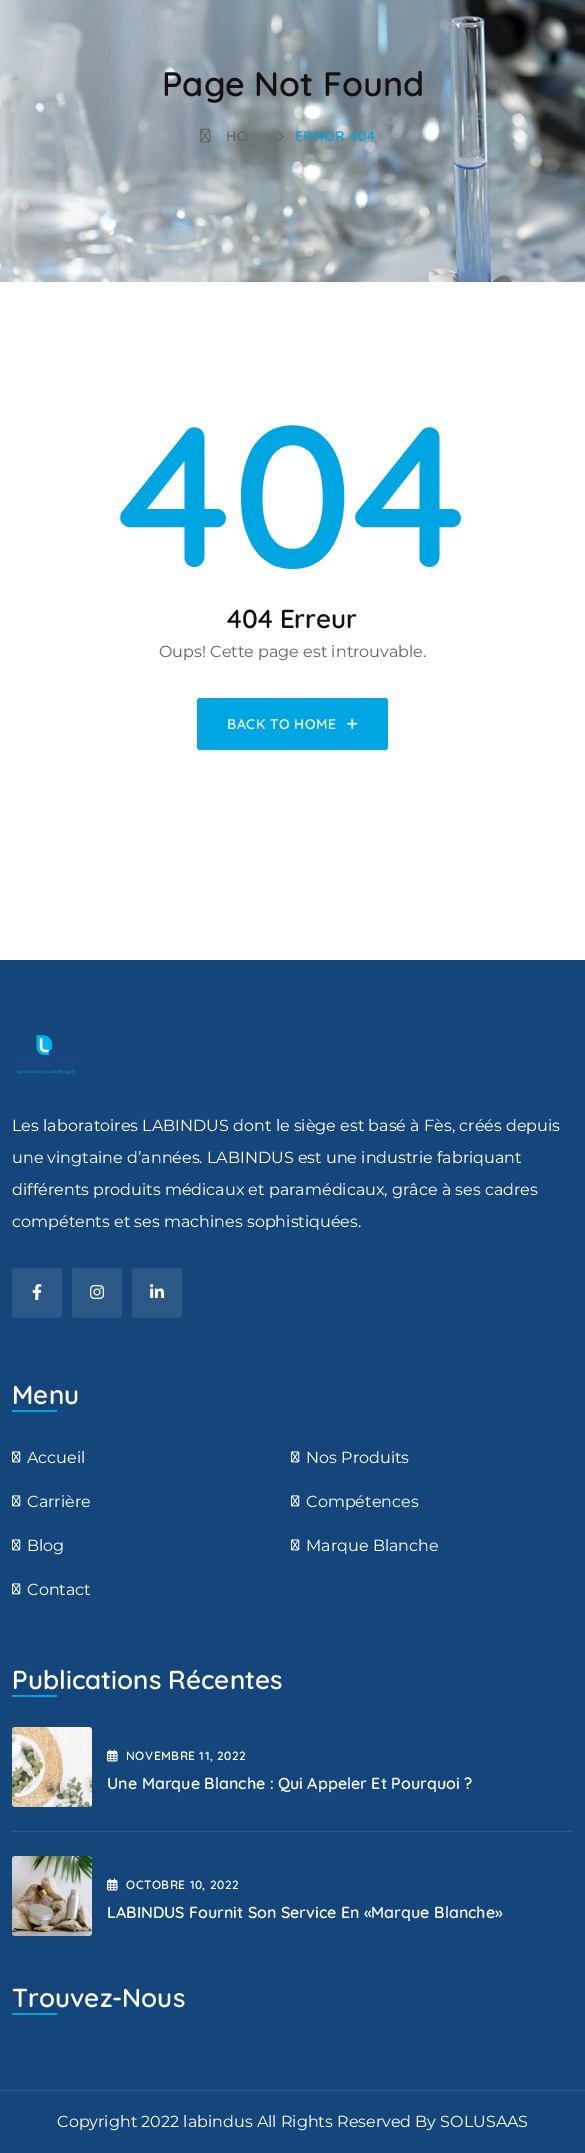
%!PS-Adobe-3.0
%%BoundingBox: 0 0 585 2153
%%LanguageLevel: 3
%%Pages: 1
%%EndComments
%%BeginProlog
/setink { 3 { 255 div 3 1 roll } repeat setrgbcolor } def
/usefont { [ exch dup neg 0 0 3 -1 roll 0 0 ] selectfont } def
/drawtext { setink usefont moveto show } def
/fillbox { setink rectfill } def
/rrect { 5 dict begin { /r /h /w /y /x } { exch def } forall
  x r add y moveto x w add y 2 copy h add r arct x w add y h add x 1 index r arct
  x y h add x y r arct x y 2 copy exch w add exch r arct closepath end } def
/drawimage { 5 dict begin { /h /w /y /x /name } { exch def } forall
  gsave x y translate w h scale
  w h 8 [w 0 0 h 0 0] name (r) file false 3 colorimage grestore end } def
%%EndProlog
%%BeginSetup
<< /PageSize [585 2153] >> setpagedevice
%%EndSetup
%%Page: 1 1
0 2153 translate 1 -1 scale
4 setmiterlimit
0 0 585 2153 255 255 255 fillbox
(assets/img1.rgb) 0 0 585 282 drawimage
(Page Not Found) 162 96 /Quicksand-SemiBold 34 24 16 15 drawtext
(assets/img2.rgb) 200 128 11 15 drawimage
/Quicksand-SemiBold 14 usefont
102 102 102 setink
226 141 moveto 0.5 0 (HO) ashow
(assets/img3.rgb) 278 131 6 11 drawimage
1 165 226 setink
295 141 moveto 0.5 0 (ERROR 404) ashow
(404) 118 567 /Quicksand-SemiBold 200 1 165 226 drawtext
(404 Erreur) 227 628 /Quicksand-SemiBold 26 24 16 15 drawtext
(Oups! Cette page est introuvable.) 159 657 /Montserrat-Regular 16 102 102 102 drawtext
1 165 226 setink
197 698 191 52 3 rrect fill
/Quicksand-SemiBold 14 usefont
255 255 255 setink
227 729 moveto 0.5 0 (BACK TO HOME) ashow
(assets/img4.rgb) 347 718 11 11 drawimage
0 960 585 1193 20 69 123 fillbox
(assets/img5.rgb) 17 1035 60 39 drawimage
(Les laboratoires LABINDUS dont le siège est basé à Fès, créés depuis) 12 1131 /Montserrat-Regular 16 255 255 255 drawtext
(une vingtaine d’années. LABINDUS est une industrie fabriquant) 12 1163 /Montserrat-Regular 16 255 255 255 drawtext
(différents produits médicaux et paramédicaux, grâce à ses cadres) 12 1195 /Montserrat-Regular 16 255 255 255 drawtext
(compétents et ses machines sophistiquées.) 12 1227 /Montserrat-Regular 16 255 255 255 drawtext
44 88 136 setink
12 1268 50 50 3 rrect fill
(assets/img6.rgb) 32 1284 10 16 drawimage
72 1268 50 50 3 rrect fill
(assets/img7.rgb) 90 1285 14 14 drawimage
132 1268 50 50 3 rrect fill
(assets/img8.rgb) 150 1284 14 14 drawimage
(Menu) 12 1404 /Quicksand-SemiBold 26 255 255 255 drawtext
12 1410 45 2 1 165 226 fillbox
(assets/img9.rgb) 12 1451 9 12 drawimage
(Accueil) 27 1463 /Montserrat-Regular 16 255 255 255 drawtext
(assets/img9.rgb) 291 1451 9 12 drawimage
(Nos Produits) 306 1463 /Montserrat-Regular 16 255 255 255 drawtext
(assets/img9.rgb) 12 1495 9 12 drawimage
(Carrière) 27 1507 /Montserrat-Regular 16 255 255 255 drawtext
(assets/img9.rgb) 291 1495 9 12 drawimage
(Compétences) 306 1507 /Montserrat-Regular 16 255 255 255 drawtext
(assets/img9.rgb) 12 1539 9 12 drawimage
(Blog) 27 1551 /Montserrat-Regular 16 255 255 255 drawtext
(assets/img9.rgb) 291 1539 9 12 drawimage
(Marque Blanche) 306 1551 /Montserrat-Regular 16 255 255 255 drawtext
(assets/img9.rgb) 12 1583 9 12 drawimage
(Contact) 27 1595 /Montserrat-Regular 16 255 255 255 drawtext
(Publications Récentes) 12 1689 /Quicksand-SemiBold 26 255 255 255 drawtext
12 1695 45 2 1 165 226 fillbox
12 1831 561 1 44 88 136 fillbox
(assets/img10.rgb) 12 1727 80 80 drawimage
(assets/img11.rgb) 107 1749 11 13 drawimage
/Quicksand-SemiBold 12 usefont
255 255 255 setink
126 1760 moveto 0.5 0 (NOVEMBRE 11, 2022) ashow
(Une Marque Blanche : Qui Appeler Et Pourquoi ?) 107 1789 /Quicksand-SemiBold 16 255 255 255 drawtext
(assets/img12.rgb) 12 1856 80 80 drawimage
(assets/img11.rgb) 107 1878 11 13 drawimage
/Quicksand-SemiBold 12 usefont
126 1889 moveto 0.5 0 (OCTOBRE 10, 2022) ashow
(LABINDUS Fournit Son Service En «Marque Blanche») 107 1918 /Quicksand-SemiBold 16 255 255 255 drawtext
(Trouvez-Nous) 12 2007 /Quicksand-SemiBold 26 255 255 255 drawtext
12 2013 45 2 1 165 226 fillbox
0 2090 585 1 44 88 136 fillbox
(Copyright 2022 labindus All Rights Reserved By SOLUSAAS) 57 2127 /Montserrat-Regular 16 255 255 255 drawtext
showpage
%%EOF
